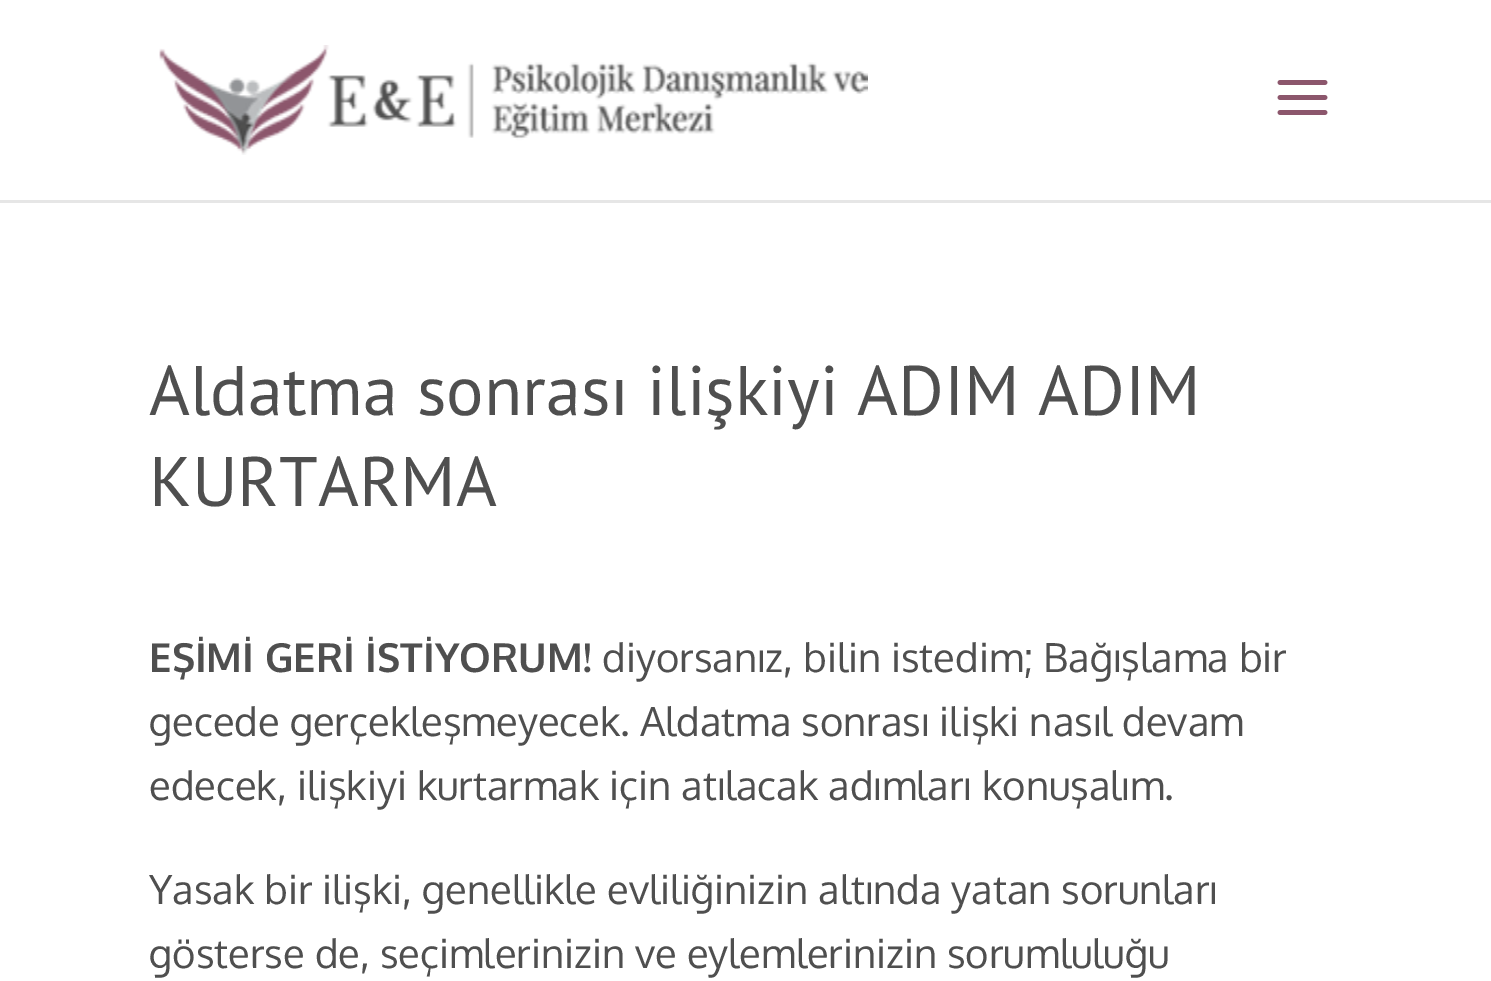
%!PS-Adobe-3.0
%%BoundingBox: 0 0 1491 981
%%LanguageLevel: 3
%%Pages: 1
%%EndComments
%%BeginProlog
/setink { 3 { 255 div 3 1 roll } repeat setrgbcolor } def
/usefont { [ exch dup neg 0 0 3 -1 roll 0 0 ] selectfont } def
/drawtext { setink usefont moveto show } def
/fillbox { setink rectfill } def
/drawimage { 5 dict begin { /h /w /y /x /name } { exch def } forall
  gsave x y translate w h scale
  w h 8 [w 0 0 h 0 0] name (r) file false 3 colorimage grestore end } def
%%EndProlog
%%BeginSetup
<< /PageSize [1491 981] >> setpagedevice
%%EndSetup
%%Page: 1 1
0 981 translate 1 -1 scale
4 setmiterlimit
0 0 1491 981 255 255 255 fillbox
230 230 230 setink
0 200 moveto 0 203 lineto 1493 203 lineto 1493 3 lineto 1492 3 lineto 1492 200 lineto closepath fill
(assets/img1.rgb) 159 45 709 110 drawimage
(assets/img2.rgb) 1277 80 51 35 drawimage
(Aldatma sonrası ilişkiyi ADIM ADIM) 149 415 /PTSans-Regular 70 79 79 79 drawtext
(KURTARMA) 149 506 /PTSans-Regular 70 79 79 79 drawtext
(EŞİMİ GERİ İSTİYORUM!) 149 672 /Oxygen-Bold 40 79 79 79 drawtext
(diyorsanız, bilin istedim; Bağışlama bir) 602 672 /Oxygen-Regular 40 79 79 79 drawtext
(gecede gerçekleşmeyecek. Aldatma sonrası ilişki nasıl devam) 149 736 /Oxygen-Regular 40 79 79 79 drawtext
(edecek, ilişkiyi kurtarmak için atılacak adımları konuşalım.) 149 800 /Oxygen-Regular 40 79 79 79 drawtext
(Yasak bir ilişki, genellikle evliliğinizin altında yatan sorunları) 149 904 /Oxygen-Regular 40 79 79 79 drawtext
(gösterse de, seçimlerinizin ve eylemlerinizin sorumluluğu) 149 968 /Oxygen-Regular 40 79 79 79 drawtext
showpage
%%EOF
